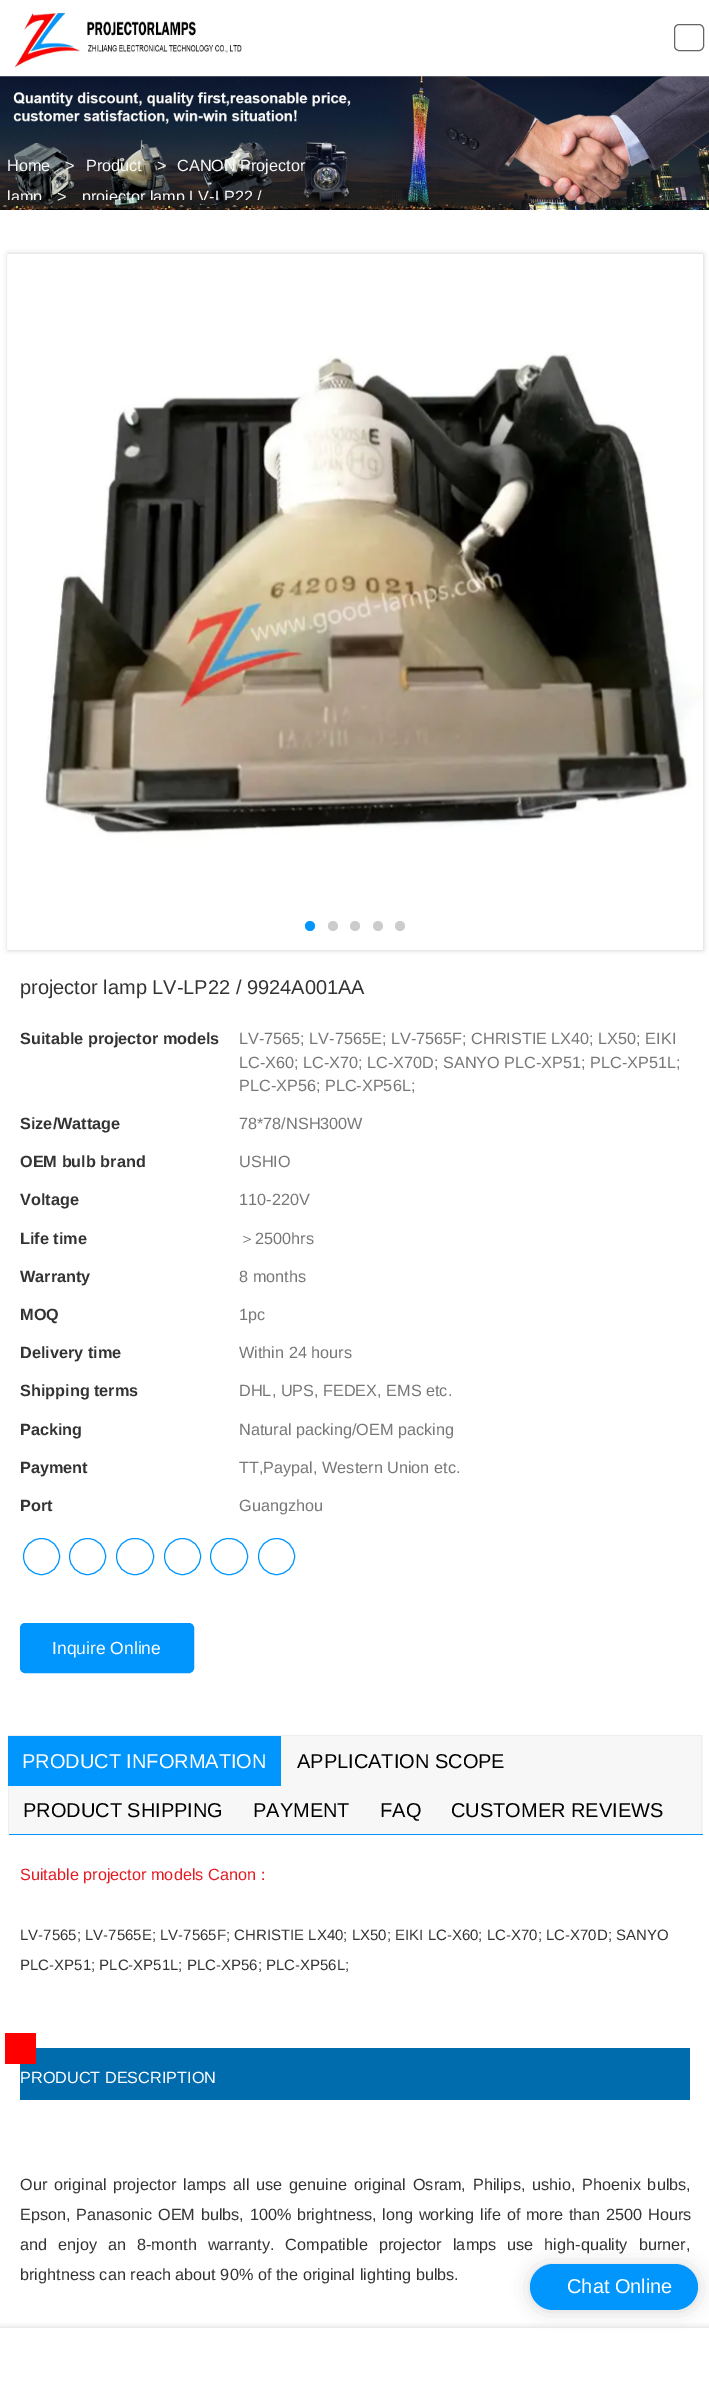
%!PS-Adobe-3.0
%%BoundingBox: 0 0 709 2397
%%LanguageLevel: 3
%%Pages: 1
%%EndComments
%%BeginProlog
/setink { 3 { 255 div 3 1 roll } repeat setrgbcolor } def
/usefont { [ exch dup neg 0 0 3 -1 roll 0 0 ] selectfont } def
/drawtext { setink usefont moveto show } def
/fillbox { setink rectfill } def
/setalpha { dup .setfillconstantalpha .setstrokeconstantalpha } def
/disc { newpath 0 360 arc closepath } def
/rrect { 5 dict begin { /r /h /w /y /x } { exch def } forall
  x r add y moveto x w add y 2 copy h add r arct x w add y h add x 1 index r arct
  x y h add x y r arct x y 2 copy exch w add exch r arct closepath end } def
/softshadow { 12 dict begin { /a /b /q /h /w /y /x } { exch def } forall gsave /was 0 def
  9 -2 -9 { dup b mul 4 div /e exch def 1 sub .425 mul 2.718 exch exp 1 add a .99 .min exch div /now exch def
    1 1 now sub 1 was sub div sub setalpha /was now def
    w h .min e 2 mul add 0 gt { x e sub y e sub w e 2 mul add h e 2 mul add
      q e add b .6 mul add w h .min 2 div e add .min 0 .max rrect fill } if } for grestore end } def
/drawimage { 5 dict begin { /h /w /y /x /name } { exch def } forall
  gsave x y translate w h scale
  w h 8 [w 0 0 h 0 0] name (r) file false 3 colorimage grestore end } def
%%EndProlog
%%BeginSetup
<< /PageSize [709 2397] /PageUsesTransparency true >> setpagedevice
%%EndSetup
%%Page: 1 1
0 .pushpdf14devicefilter
0 2397 translate 1 -1 scale
4 setmiterlimit
0 0 709 2397 255 255 255 fillbox
(assets/img1.rgb) 15 12 227 56 drawimage
102 102 102 setink
674.5 24.5 29 26 4.5 rrect stroke
(assets/img2.rgb) 0 76 709 134 drawimage
(Home) 7 171 /LiberationSans-Regular 16.25 248 248 248 drawtext
(>) 65 171 /LiberationSans-Regular 16.25 248 248 248 drawtext
(Product) 86 171 /LiberationSans-Regular 16.25 248 248 248 drawtext
(>) 157 171 /LiberationSans-Regular 16.25 248 248 248 drawtext
(CANON Projector) 177 171 /LiberationSans-Regular 16.25 248 248 248 drawtext
gsave
6 150 317 50 rectclip
(lamp) 7 202 /LiberationSans-Regular 16.25 248 248 248 drawtext
grestore
(>) 57 202 /LiberationSans-Regular 16.25 248 248 248 drawtext
gsave
6 150 317 50 rectclip
(projector lamp LV-LP22 /) 82 202 /LiberationSans-Regular 16.25 248 248 248 drawtext
grestore
0 0 0 setink
8 254 695 696 0 2.5 0.2 softshadow
(assets/img3.rgb) 7 254 696 696 drawimage
0 150 254 setink
310 926 5 disc fill
204 204 204 setink
333 926 5 disc fill
355 926 5 disc fill
378 926 5 disc fill
400 926 5 disc fill
(projector lamp LV-LP22 / 9924A001AA) 20 994 /LiberationSans-Regular 20 51 51 51 drawtext
(Suitable projector models) 20 1044 /LiberationSans-Bold 16.25 51 51 51 drawtext
(LV-7565; LV-7565E; LV-7565F; CHRISTIE LX40; LX50; EIKI) 239 1044 /LiberationSans-Regular 16.25 119 119 119 drawtext
(LC-X60; LC-X70; LC-X70D; SANYO PLC-XP51; PLC-XP51L;) 239 1068 /LiberationSans-Regular 16.25 119 119 119 drawtext
(PLC-XP56; PLC-XP56L;) 239 1091 /LiberationSans-Regular 16.25 119 119 119 drawtext
(Size/Wattage) 20 1129 /LiberationSans-Bold 16.25 51 51 51 drawtext
(78*78/NSH300W) 239 1129 /LiberationSans-Regular 16.25 119 119 119 drawtext
(OEM bulb brand) 20 1167 /LiberationSans-Bold 16.25 51 51 51 drawtext
(USHIO) 239 1167 /LiberationSans-Regular 16.25 119 119 119 drawtext
(Voltage) 20 1205 /LiberationSans-Bold 16.25 51 51 51 drawtext
(110-220V) 239 1205 /LiberationSans-Regular 16.25 119 119 119 drawtext
(Life time) 20 1244 /LiberationSans-Bold 16.25 51 51 51 drawtext
(＞) 239 1244 /WenQuanYiZenHei-Medium 16.25 119 119 119 drawtext
(2500hrs) 255 1244 /LiberationSans-Regular 16.25 119 119 119 drawtext
(Warranty) 20 1282 /LiberationSans-Bold 16.25 51 51 51 drawtext
(8 months) 239 1282 /LiberationSans-Regular 16.25 119 119 119 drawtext
(MOQ) 20 1320 /LiberationSans-Bold 16.25 51 51 51 drawtext
(1pc) 239 1320 /LiberationSans-Regular 16.25 119 119 119 drawtext
(Delivery time) 20 1358 /LiberationSans-Bold 16.25 51 51 51 drawtext
(Within 24 hours) 239 1358 /LiberationSans-Regular 16.25 119 119 119 drawtext
(Shipping terms) 20 1396 /LiberationSans-Bold 16.25 51 51 51 drawtext
(DHL, UPS, FEDEX, EMS etc.) 239 1396 /LiberationSans-Regular 16.25 119 119 119 drawtext
(Packing) 20 1435 /LiberationSans-Bold 16.25 51 51 51 drawtext
(Natural packing/OEM packing) 239 1435 /LiberationSans-Regular 16.25 119 119 119 drawtext
(Payment) 20 1473 /LiberationSans-Bold 16.25 51 51 51 drawtext
(TT,Paypal, Western Union etc.) 239 1473 /LiberationSans-Regular 16.25 119 119 119 drawtext
(Port) 20 1511 /LiberationSans-Bold 16.25 51 51 51 drawtext
(Guangzhou) 239 1511 /LiberationSans-Regular 16.25 119 119 119 drawtext
0 150 254 setink
41.5 1556.5 18 disc stroke
87.5 1556.5 18 disc stroke
116.5 1538.5 37 36 18 rrect stroke
182.5 1556.5 18 disc stroke
210.5 1538.5 37 36 18 rrect stroke
276.5 1556.5 18 disc stroke
20.5 1623.5 173 49 4.5 rrect gsave fill grestore
stroke
(Inquire Online) 52 1654 /LiberationSans-Regular 17.5 255 255 255 drawtext
9 1736 694 98 247 247 247 fillbox
8 1735 695 1 238 238 238 fillbox
701 1735 1 100 238 238 238 fillbox
8 1834 695 1 0 150 254 fillbox
8 1735 1 100 238 238 238 fillbox
8 1736 273 50 0 150 254 fillbox
(PRODUCT INFORMATION) 22 1768 /LiberationSans-Regular 20 255 255 255 drawtext
(APPLICATION SCOPE) 297 1768 /LiberationSans-Regular 20 0 0 0 drawtext
(PRODUCT SHIPPING) 23 1817 /LiberationSans-Regular 20 0 0 0 drawtext
(PAYMENT) 253 1817 /LiberationSans-Regular 20 0 0 0 drawtext
(FAQ) 380 1817 /LiberationSans-Regular 20 0 0 0 drawtext
(CUSTOMER REVIEWS) 451 1817 /LiberationSans-Regular 20 0 0 0 drawtext
(Suitable projector models Canon) 20 1880 /LiberationSans-Regular 16.25 226 28 34 drawtext
(：) 255 1880 /WenQuanYiZenHei-Medium 16.25 226 28 34 drawtext
(LV-7565; LV-7565E; LV-7565F; CHRISTIE LX40; LX50; EIKI LC-X60; LC-X70; LC-X70D; SANYO) 20 1940 /LiberationSans-Regular 15 51 51 51 drawtext
(PLC-XP51; PLC-XP51L; PLC-XP56; PLC-XP56L;) 20 1970 /LiberationSans-Regular 15 51 51 51 drawtext
20 2048 670 52 0 107 173 fillbox
5 2033 31 31 255 0 0 fillbox
(PRODUCT DESCRIPTION) 20 2083 /LiberationSans-Regular 16.25 255 255 255 drawtext
51 51 51 setink
20 2190 moveto 2.25 0 32 (Our original projector lamps all use genuine original Osram, Philips, ushio, Phoenix bulbs,) widthshow
20 2220 moveto 1.2 0 32 (Epson, Panasonic OEM bulbs, 100% brightness, long working life of more than 2500 Hours) widthshow
20 2250 moveto 6.5 0 32 (and enjoy an 8-month warranty. Compatible projector lamps use high-quality burner,) widthshow
(brightness can reach about 90% of the original lighting bulbs.) 20 2280 /LiberationSans-Regular 16.25 51 51 51 drawtext
0 0 0 setink
530 2265 168 46 23 9.5 0.15 softshadow
0 150 254 setink
530 2264 168 46 23 rrect fill
(Chat Online) 567 2293 /LiberationSans-Regular 20 255 255 255 drawtext
gsave
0 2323 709 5 rectclip
0 0 0 setink
0 2328 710 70 0 4 0.16 softshadow
grestore
.poppdf14devicefilter showpage
%%EOF
